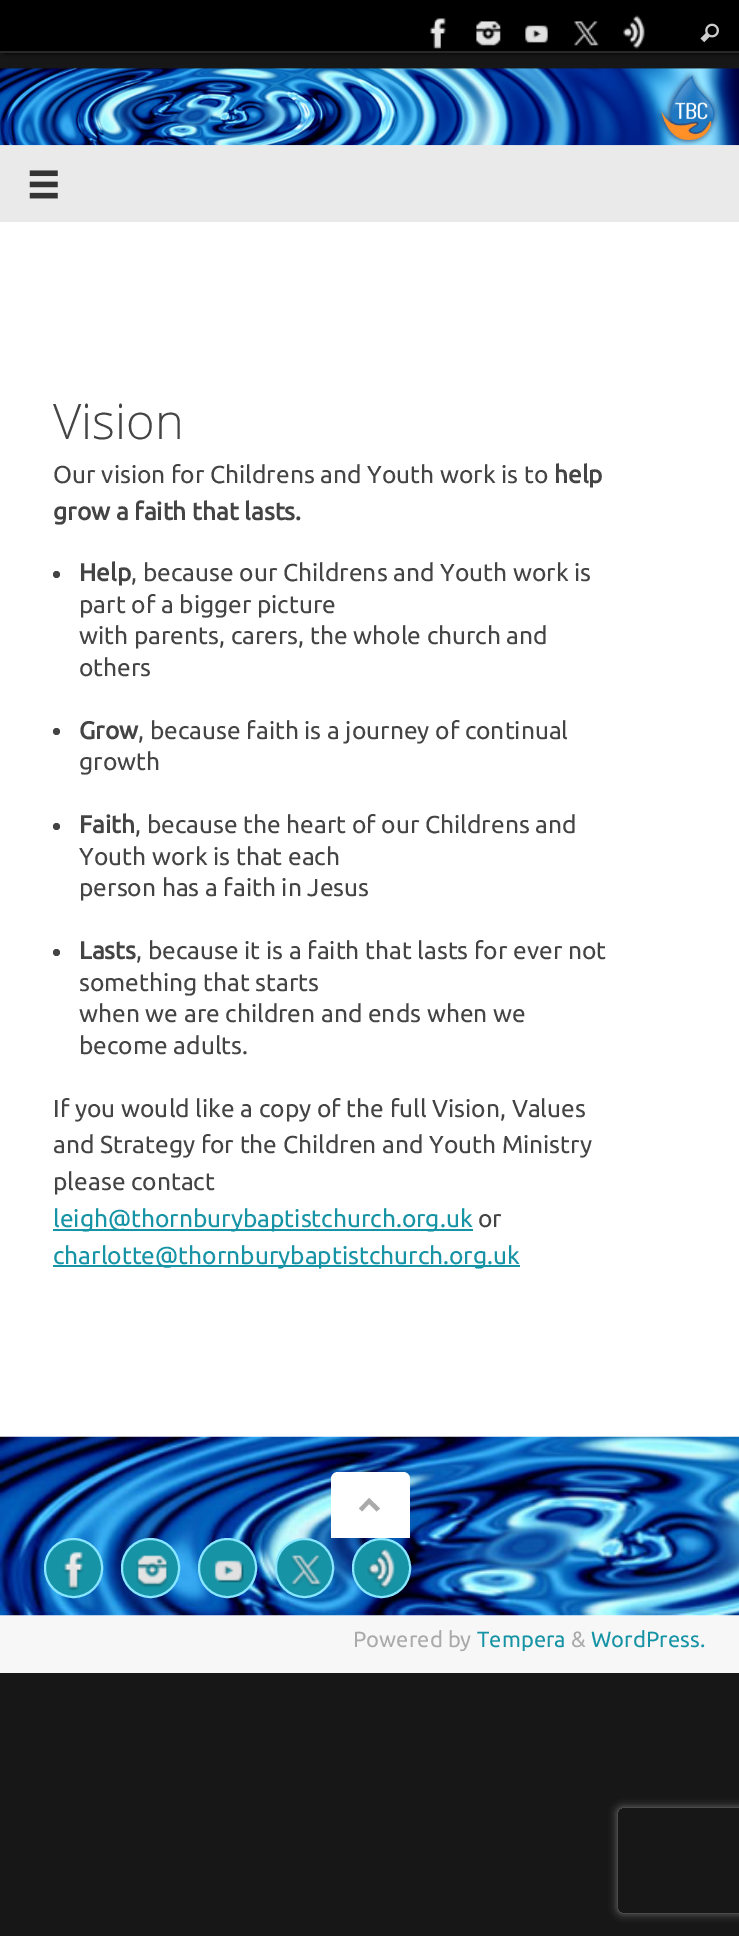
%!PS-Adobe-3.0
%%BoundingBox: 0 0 739 1936
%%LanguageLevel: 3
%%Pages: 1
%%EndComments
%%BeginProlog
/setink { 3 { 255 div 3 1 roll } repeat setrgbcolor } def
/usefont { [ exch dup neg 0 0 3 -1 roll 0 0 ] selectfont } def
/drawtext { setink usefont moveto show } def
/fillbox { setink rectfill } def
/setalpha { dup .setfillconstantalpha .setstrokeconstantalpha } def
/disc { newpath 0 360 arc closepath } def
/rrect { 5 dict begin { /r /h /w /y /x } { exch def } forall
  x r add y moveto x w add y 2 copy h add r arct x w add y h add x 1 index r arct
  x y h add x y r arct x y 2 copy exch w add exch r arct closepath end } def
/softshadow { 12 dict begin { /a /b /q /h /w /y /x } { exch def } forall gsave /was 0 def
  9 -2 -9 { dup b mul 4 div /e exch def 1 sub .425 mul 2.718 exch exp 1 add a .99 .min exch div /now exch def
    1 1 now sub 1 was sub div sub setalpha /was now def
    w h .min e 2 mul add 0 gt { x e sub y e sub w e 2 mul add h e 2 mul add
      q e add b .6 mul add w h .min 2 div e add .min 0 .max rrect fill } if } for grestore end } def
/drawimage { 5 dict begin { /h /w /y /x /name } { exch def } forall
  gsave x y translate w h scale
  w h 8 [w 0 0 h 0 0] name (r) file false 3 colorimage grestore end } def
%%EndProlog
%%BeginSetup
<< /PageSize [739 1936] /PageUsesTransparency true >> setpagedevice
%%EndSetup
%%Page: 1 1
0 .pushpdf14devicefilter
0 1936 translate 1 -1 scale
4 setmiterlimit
0 0 739 1936 23 23 23 fillbox
0 0 0 setink
5 0 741 53 0 2.5 1 softshadow
0 0 739 51 0 0 0 fillbox
0 51 739 2 40 40 40 fillbox
(assets/img1.rgb) 430 18 16 31 drawimage
(assets/img2.rgb) 476 21 25 25 drawimage
(assets/img3.rgb) 525 25 23 18 drawimage
(assets/img4.rgb) 574 21 25 25 drawimage
(assets/img5.rgb) 623 15 22 34 drawimage
(assets/img6.rgb) 700 23 19 20 drawimage
0 145 739 77 234 234 234 fillbox
(assets/img7.rgb) 0 68 739 78 drawimage
(assets/img8.rgb) 29 170 29 29 drawimage
0 222 739 1215 255 255 255 fillbox
(Vision) 53 439 /OpenSans-Light 49 68 68 68 drawtext
(Our vision for Childrens and Youth work is to) 53 483 /Ubuntu-Regular 24.5 68 68 68 drawtext
(help) 554 483 /Ubuntu-Bold 24.5 68 68 68 drawtext
(grow a faith that lasts.) 53 520 /Ubuntu-Bold 24.5 68 68 68 drawtext
56.5 574.5 3.5 disc fill
(Help) 79 581 /Ubuntu-Bold 24.5 68 68 68 drawtext
(, because our Childrens and Youth work is) 131 581 /Ubuntu-Regular 24.5 68 68 68 drawtext
(part of a bigger picture) 79 613 /Ubuntu-Regular 24.5 68 68 68 drawtext
(with parents, carers, the whole church and) 79 644 /Ubuntu-Regular 24.5 68 68 68 drawtext
(others) 79 676 /Ubuntu-Regular 24.5 68 68 68 drawtext
56.5 731.5 3.5 disc fill
(Grow) 79 739 /Ubuntu-Bold 24.5 68 68 68 drawtext
(, because faith is a journey of continual) 138 739 /Ubuntu-Regular 24.5 68 68 68 drawtext
(growth) 79 770 /Ubuntu-Regular 24.5 68 68 68 drawtext
56.5 826.5 3.5 disc fill
(Faith) 79 833 /Ubuntu-Bold 24.5 68 68 68 drawtext
(, because the heart of our Childrens and) 135 833 /Ubuntu-Regular 24.5 68 68 68 drawtext
(Youth work is that each) 79 865 /Ubuntu-Regular 24.5 68 68 68 drawtext
(person has a faith in Jesus) 79 896 /Ubuntu-Regular 24.5 68 68 68 drawtext
56.5 952.5 3.5 disc fill
(Lasts) 79 959 /Ubuntu-Bold 24.5 68 68 68 drawtext
(, because it is a faith that lasts for ever not) 136 959 /Ubuntu-Regular 24.5 68 68 68 drawtext
(something that starts) 79 991 /Ubuntu-Regular 24.5 68 68 68 drawtext
(when we are children and ends when we) 79 1022 /Ubuntu-Regular 24.5 68 68 68 drawtext
(become adults.) 79 1054 /Ubuntu-Regular 24.5 68 68 68 drawtext
(If you would like a copy of the full Vision, Values) 53 1117 /Ubuntu-Regular 24.5 68 68 68 drawtext
(and Strategy for the Children and Youth Ministry) 53 1153 /Ubuntu-Regular 24.5 68 68 68 drawtext
(please contact) 53 1190 /Ubuntu-Regular 24.5 68 68 68 drawtext
53 1229 420 2 22 147 165 fillbox
(leigh@thornburybaptistchurch.org.uk) 53 1227 /Ubuntu-Regular 24.5 22 147 165 drawtext
(or) 478 1227 /Ubuntu-Regular 24.5 68 68 68 drawtext
53 1265 467 2 22 147 165 fillbox
(charlotte@thornburybaptistchurch.org.uk) 53 1264 /Ubuntu-Regular 24.5 22 147 165 drawtext
0 1615 739 58 247 247 247 fillbox
(assets/img9.rgb) 0 1436 739 180 drawimage
255 255 255 setink
338 1472 moveto 403 1472 lineto 407 1472 410 1475 410 1479 curveto 410 1538 lineto 331 1538 lineto 331 1479 lineto 331 1475 334 1472 338 1472 curveto closepath fill
170 170 170 setink
359 1508.5 moveto 369 1498 lineto 380 1508.5 lineto 376.5 1511.5 lineto 369 1504 lineto 362 1511.5 lineto closepath fill
22 147 165 setink
45 1539 57 58 28.5 rrect gsave fill grestore
136 230 255 setink
2 setlinewidth
stroke
(assets/img10.rgb) 63 1551 21 40 drawimage
22 147 165 setink
122 1539 57 58 28.5 rrect gsave fill grestore
136 230 255 setink
stroke
(assets/img11.rgb) 136 1555 32 33 drawimage
22 147 165 setink
199 1539 57 58 28.5 rrect gsave fill grestore
136 230 255 setink
stroke
(assets/img12.rgb) 214 1560 30 23 drawimage
22 147 165 setink
276 1539 57 58 28.5 rrect gsave fill grestore
136 230 255 setink
stroke
(assets/img13.rgb) 291 1555 30 32 drawimage
22 147 165 setink
353 1539 57 58 28.5 rrect gsave fill grestore
136 230 255 setink
stroke
(assets/img14.rgb) 367 1548 28 42 drawimage
(Powered by) 353 1647 /Ubuntu-Regular 22 170 170 170 drawtext
(Tempera) 477 1647 /Ubuntu-Regular 22 22 147 165 drawtext
(&) 571 1647 /Ubuntu-Regular 22 170 170 170 drawtext
(WordPress.) 591 1647 /Ubuntu-Regular 22 22 147 165 drawtext
gsave
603 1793 moveto 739 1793 lineto 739 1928 lineto 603 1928 lineto closepath 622 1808 moveto 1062 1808 lineto 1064 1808 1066 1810 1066 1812 curveto 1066 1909 lineto 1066 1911 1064 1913 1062 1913 curveto 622 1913 lineto 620 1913 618 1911 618 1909 curveto 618 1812 lineto 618 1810 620 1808 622 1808 curveto closepath eoclip newpath
128 128 128 setink
618 1808 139 105 4 4.5 1 softshadow
grestore
.poppdf14devicefilter showpage
%%EOF
